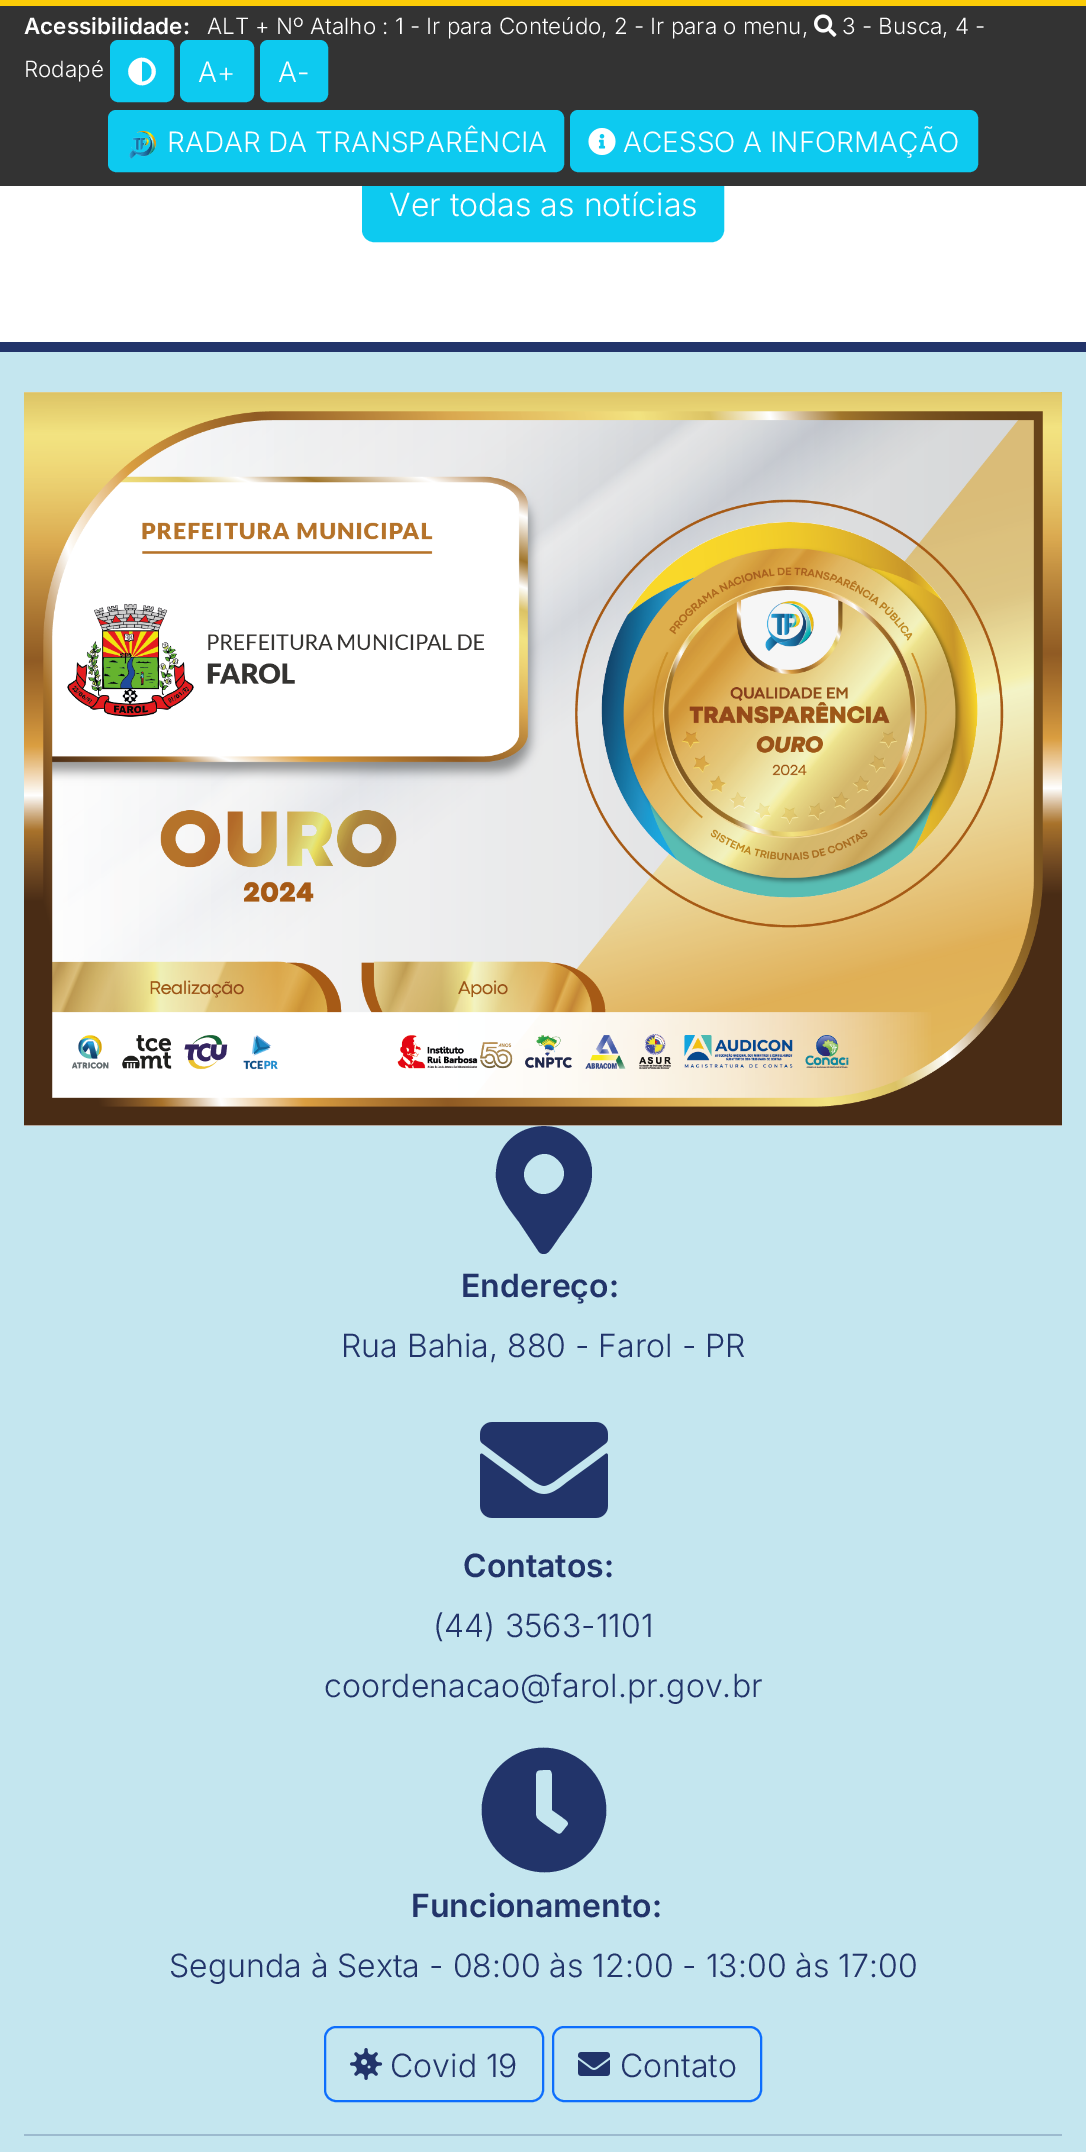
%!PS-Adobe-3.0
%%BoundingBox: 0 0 1086 2152
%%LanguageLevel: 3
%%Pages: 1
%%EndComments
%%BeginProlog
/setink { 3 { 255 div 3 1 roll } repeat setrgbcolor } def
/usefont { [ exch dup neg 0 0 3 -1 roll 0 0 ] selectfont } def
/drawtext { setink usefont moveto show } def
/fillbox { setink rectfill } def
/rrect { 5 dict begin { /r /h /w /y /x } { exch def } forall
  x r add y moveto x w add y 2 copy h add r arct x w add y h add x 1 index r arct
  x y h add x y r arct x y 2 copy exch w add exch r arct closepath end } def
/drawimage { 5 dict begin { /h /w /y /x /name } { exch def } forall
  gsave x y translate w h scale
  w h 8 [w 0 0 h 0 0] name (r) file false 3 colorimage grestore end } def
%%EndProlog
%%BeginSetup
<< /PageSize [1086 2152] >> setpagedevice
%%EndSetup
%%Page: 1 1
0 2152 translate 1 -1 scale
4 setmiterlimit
0 0 1086 2152 255 255 255 fillbox
13 202 240 setink
363 167 360 74 11 rrect gsave fill grestore
2 setlinewidth
stroke
0 6 1086 180 51 51 51 fillbox
0 0 1086 6 251 204 7 fillbox
(Acessibilidade:) 24 34 /Inter-SemiBold 22.4 255 255 255 drawtext
(ALT + Nº Atalho : 1 - Ir para Conteúdo, 2 - Ir para o menu,) 207 34 /Inter-Light 22.4 255 255 255 drawtext
(assets/img1.rgb) 814 14 23 23 drawimage
(3 - Busca, 4 -) 842 34 /Inter-Light 22.4 255 255 255 drawtext
(Rodapé) 24 77 /Inter-Light 22.4 255 255 255 drawtext
13 202 240 setink
111 41 62 60 7 rrect gsave fill grestore
stroke
255 255 255 setink
132.5 81 moveto 119.5 68.5 139 49 151.5 62 curveto 164.5 74.5 145 94 132.5 81 curveto closepath 142 81.5 moveto 155 81.5 155 61.5 142 61.5 curveto closepath fill
13 202 240 setink
181 41 72 60 7 rrect gsave fill grestore
stroke
(A+) 198 82 /Inter-Light 28 255 255 255 drawtext
13 202 240 setink
261 41 66 60 7 rrect gsave fill grestore
stroke
(A-) 278 82 /Inter-Light 28 255 255 255 drawtext
13 202 240 setink
109 111 454 60 7 rrect gsave fill grestore
stroke
(assets/img2.rgb) 129 131 28 28 drawimage
(RADAR DA TRANSPARÊNCIA) 167 152 /Inter-Light 28 255 255 255 drawtext
13 202 240 setink
571 111 406 60 7 rrect gsave fill grestore
stroke
(assets/img3.rgb) 588 128 28 27 drawimage
(ACESSO A INFORMAÇÃO) 623 152 /Inter-Light 28 255 255 255 drawtext
(Ver todas as notícias) 389 216 /Inter-Light 32 255 255 255 drawtext
0 352 1086 1800 196 230 239 fillbox
0 342 1086 10 34 52 106 fillbox
(assets/img4.rgb) 24 392 1038 734 drawimage
539 1252 moveto 519 1222 lineto 510 1210 500 1198 497 1183 curveto 495 1177 496 1170 497 1164 curveto 505 1122 561 1113 584 1147 curveto 589 1154 591 1161 592 1169 curveto 592 1174 592 1179 591 1183 curveto 588 1199 572 1219 563 1232 curveto 560 1235 550 1252 547 1253 curveto 544 1255 541 1254 539 1252 curveto closepath 530 1188 moveto 548 1207 577 1178 558 1160 curveto 540 1141 511 1170 530 1188 curveto closepath fill
(Endereço:) 461 1297 /Inter-SemiBold 32 34 52 106 drawtext
(Rua Bahia, 880 - Farol - PR) 341 1357 /Inter-Light 32 34 52 106 drawtext
(assets/img5.rgb) 480 1422 128 96 drawimage
(Contatos:) 463 1577 /Inter-SemiBold 32 34 52 106 drawtext
(\(44\) 3563-1101) 433 1637 /Inter-Light 32 34 52 106 drawtext
(coordenacao@farol.pr.gov.br) 324 1697 /Inter-Light 32 34 52 106 drawtext
500 1766 moveto 541 1725 611 1758 606 1816 curveto 604 1831 598 1844 588 1854 curveto 547 1895 477 1862 482 1804 curveto 484 1789 490 1776 500 1766 curveto closepath 567 1826 moveto 571 1822 564 1819 562 1817 curveto 552 1810 lineto 552 1780 lineto 552 1777 553 1772 550 1770 curveto 543 1770 lineto 540 1770 536 1770 536 1774 curveto 536 1806 lineto 536 1810 535 1815 537 1818 curveto 540 1822 547 1826 551 1829 curveto 561 1836 559 1836 567 1826 curveto closepath fill
(Funcionamento:) 411 1917 /Inter-SemiBold 32 34 52 106 drawtext
(Segunda à Sexta - 08:00 às 12:00 - 13:00 às 17:00) 169 1977 /Inter-Light 32 34 52 106 drawtext
13 110 253 setink
325 2027 218 74 11 rrect stroke
(assets/img6.rgb) 350 2048 33 32 drawimage
(Covid 19) 390 2077 /Inter-Light 32 34 52 106 drawtext
13 110 253 setink
553 2027 208 74 11 rrect stroke
(assets/img7.rgb) 578 2052 32 24 drawimage
(Contato) 620 2077 /Inter-Light 32 34 52 106 drawtext
24 2134 1038 2 156 186 206 fillbox
showpage
%%EOF
